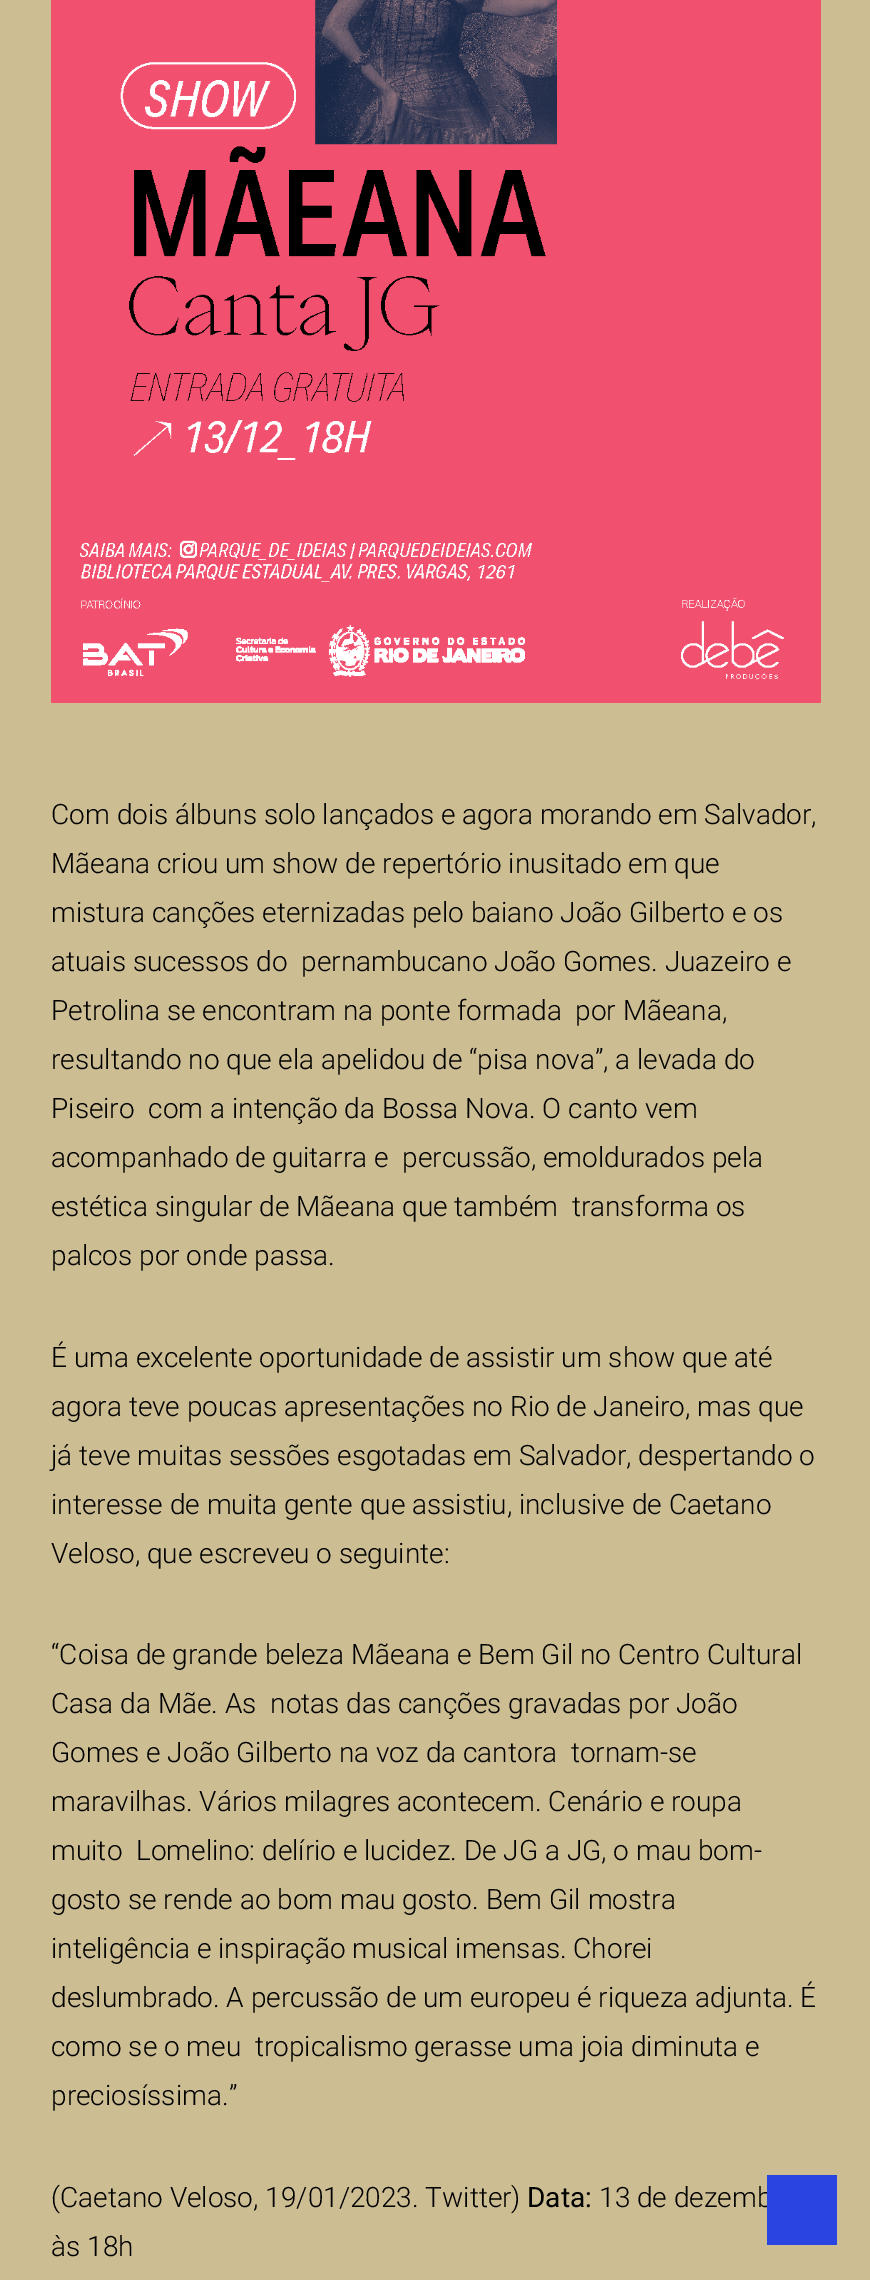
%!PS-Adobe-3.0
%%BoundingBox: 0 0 870 2280
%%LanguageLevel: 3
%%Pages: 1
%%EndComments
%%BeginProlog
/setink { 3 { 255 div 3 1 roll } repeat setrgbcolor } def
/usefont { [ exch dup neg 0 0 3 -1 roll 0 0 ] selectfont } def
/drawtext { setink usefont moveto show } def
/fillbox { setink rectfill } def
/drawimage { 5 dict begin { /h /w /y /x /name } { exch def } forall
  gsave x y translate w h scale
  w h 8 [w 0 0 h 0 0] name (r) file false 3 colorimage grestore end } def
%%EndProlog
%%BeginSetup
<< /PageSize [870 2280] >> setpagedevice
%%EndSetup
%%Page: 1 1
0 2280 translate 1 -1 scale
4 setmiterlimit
0 0 870 2280 204 189 146 fillbox
(assets/img1.rgb) 51 0 770 703 drawimage
(Com dois álbuns solo lançados e agora morando em Salvador,) 51 824 /Roboto-Light 28 0 0 0 drawtext
(Mãeana criou um show de repertório inusitado em que) 51 873 /Roboto-Light 28 0 0 0 drawtext
(mistura canções eternizadas pelo baiano João Gilberto e os) 51 922 /Roboto-Light 28 0 0 0 drawtext
(atuais sucessos do  pernambucano João Gomes. Juazeiro e) 51 971 /Roboto-Light 28 0 0 0 drawtext
(Petrolina se encontram na ponte formada  por Mãeana,) 51 1020 /Roboto-Light 28 0 0 0 drawtext
(resultando no que ela apelidou de “pisa nova”, a levada do) 51 1069 /Roboto-Light 28 0 0 0 drawtext
(Piseiro  com a intenção da Bossa Nova. O canto vem) 51 1118 /Roboto-Light 28 0 0 0 drawtext
(acompanhado de guitarra e  percussão, emoldurados pela) 51 1167 /Roboto-Light 28 0 0 0 drawtext
(estética singular de Mãeana que também  transforma os) 51 1216 /Roboto-Light 28 0 0 0 drawtext
(palcos por onde passa.) 51 1265 /Roboto-Light 28 0 0 0 drawtext
(É uma excelente oportunidade de assistir um show que até) 51 1367 /Roboto-Light 28 0 0 0 drawtext
(agora teve poucas apresentações no Rio de Janeiro, mas que) 51 1416 /Roboto-Light 28 0 0 0 drawtext
(já teve muitas sessões esgotadas em Salvador, despertando o) 51 1465 /Roboto-Light 28 0 0 0 drawtext
(interesse de muita gente que assistiu, inclusive de Caetano) 51 1514 /Roboto-Light 28 0 0 0 drawtext
(Veloso, que escreveu o seguinte:) 51 1563 /Roboto-Light 28 0 0 0 drawtext
(“Coisa de grande beleza Mãeana e Bem Gil no Centro Cultural) 51 1664 /Roboto-Light 28 0 0 0 drawtext
(Casa da Mãe. As  notas das canções gravadas por João) 51 1713 /Roboto-Light 28 0 0 0 drawtext
(Gomes e João Gilberto na voz da cantora  tornam-se) 51 1762 /Roboto-Light 28 0 0 0 drawtext
(maravilhas. Vários milagres acontecem. Cenário e roupa) 51 1811 /Roboto-Light 28 0 0 0 drawtext
(muito  Lomelino: delírio e lucidez. De JG a JG, o mau bom-) 51 1860 /Roboto-Light 28 0 0 0 drawtext
(gosto se rende ao bom mau gosto. Bem Gil mostra) 51 1909 /Roboto-Light 28 0 0 0 drawtext
(inteligência e inspiração musical imensas. Chorei) 51 1958 /Roboto-Light 28 0 0 0 drawtext
(deslumbrado. A percussão de um europeu é riqueza adjunta. É) 51 2007 /Roboto-Light 28 0 0 0 drawtext
(como se o meu  tropicalismo gerasse uma joia diminuta e) 51 2056 /Roboto-Light 28 0 0 0 drawtext
(preciosíssima.”) 51 2105 /Roboto-Light 28 0 0 0 drawtext
(\(Caetano Veloso, 19/01/2023. Twitter\)) 51 2207 /Roboto-Light 28 0 0 0 drawtext
(Data:) 527 2207 /Roboto-Regular 28 0 0 0 drawtext
(13 de dezemb) 599 2207 /Roboto-Light 28 0 0 0 drawtext
(às 18h) 51 2256 /Roboto-Light 28 0 0 0 drawtext
767 2175 70 70 42 68 226 fillbox
showpage
%%EOF
